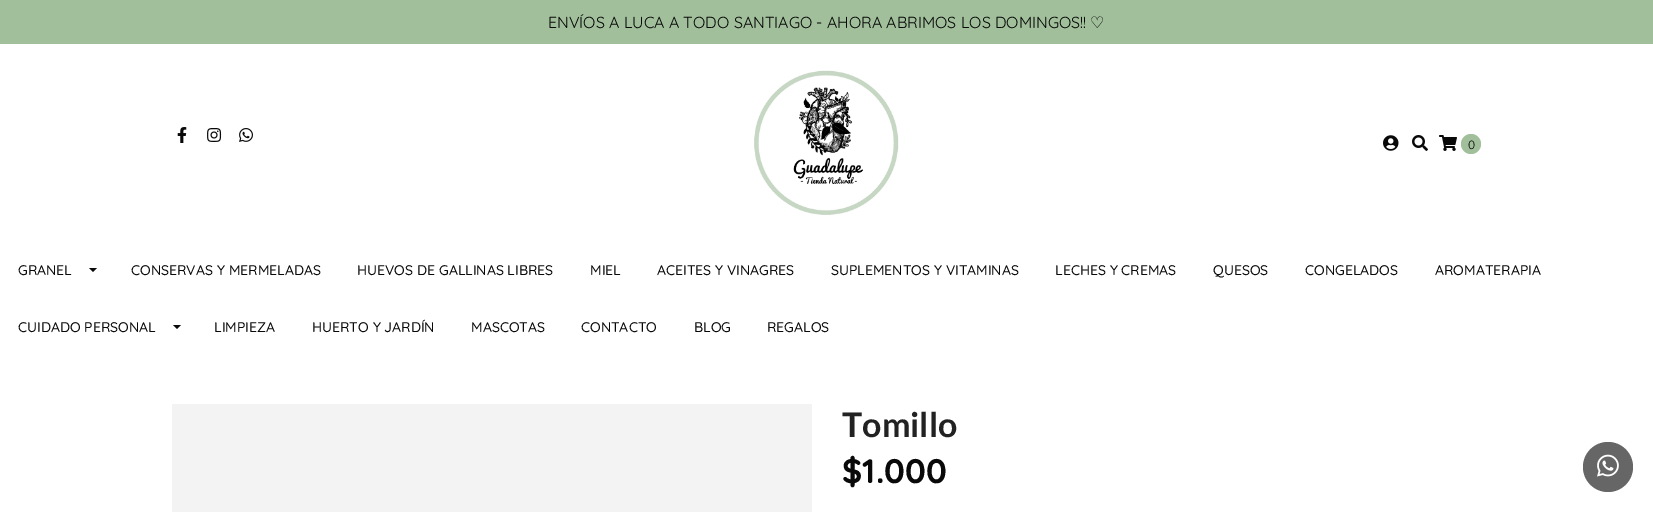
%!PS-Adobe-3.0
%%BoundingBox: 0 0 1653 512
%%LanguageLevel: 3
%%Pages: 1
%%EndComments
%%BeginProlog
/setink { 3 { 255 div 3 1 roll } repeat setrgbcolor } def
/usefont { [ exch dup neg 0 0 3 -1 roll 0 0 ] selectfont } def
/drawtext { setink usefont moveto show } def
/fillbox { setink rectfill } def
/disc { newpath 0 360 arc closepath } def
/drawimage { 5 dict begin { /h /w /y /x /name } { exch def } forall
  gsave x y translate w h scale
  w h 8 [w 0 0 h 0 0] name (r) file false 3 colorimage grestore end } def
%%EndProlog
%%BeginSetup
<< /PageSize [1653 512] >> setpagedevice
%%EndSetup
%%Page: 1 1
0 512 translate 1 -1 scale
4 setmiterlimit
0 0 1653 512 255 255 255 fillbox
0 0 1653 44 160 191 154 fillbox
(ENVÍOS A LUCA A TODO SANTIAGO - AHORA ABRIMOS LOS DOMINGOS!!) 548 28 /Quicksand-Regular 16 9 9 9 drawtext
(♡) 1090 28 /DejaVuSans-Regular 16 9 9 9 drawtext
(assets/img1.rgb) 177 127 10 16 drawimage
(assets/img2.rgb) 207 128 15 14 drawimage
(assets/img3.rgb) 239 128 14 14 drawimage
(assets/img4.rgb) 754 70 145 145 drawimage
(assets/img5.rgb) 1383 135 16 16 drawimage
(assets/img6.rgb) 1412 135 16 16 drawimage
(assets/img7.rgb) 1439 135 18 16 drawimage
160 191 154 setink
1471 144 10 disc fill
(0) 1468 149 /Quicksand-Regular 12 9 9 9 drawtext
(GRANEL) 18 275 /Quicksand-Medium 14 9 9 9 drawtext
89 268 moveto 97 268 lineto 93 272 lineto closepath fill
(CONSERVAS Y MERMELADAS) 131 275 /Quicksand-Medium 14 9 9 9 drawtext
(HUEVOS DE GALLINAS LIBRES) 357 275 /Quicksand-Medium 14 9 9 9 drawtext
(MIEL) 590 275 /Quicksand-Medium 14 9 9 9 drawtext
(ACEITES Y VINAGRES) 657 275 /Quicksand-Medium 14 9 9 9 drawtext
(SUPLEMENTOS Y VITAMINAS) 831 275 /Quicksand-Medium 14 9 9 9 drawtext
(LECHES Y CREMAS) 1055 275 /Quicksand-Medium 14 9 9 9 drawtext
(QUESOS) 1213 275 /Quicksand-Medium 14 9 9 9 drawtext
(CONGELADOS) 1305 275 /Quicksand-Medium 14 9 9 9 drawtext
(AROMATERAPIA) 1435 275 /Quicksand-Medium 14 9 9 9 drawtext
(CUIDADO PERSONAL) 18 332 /Quicksand-Medium 14 9 9 9 drawtext
173 325 moveto 181 325 lineto 177 329 lineto closepath fill
(LIMPIEZA) 214 332 /Quicksand-Medium 14 9 9 9 drawtext
(HUERTO Y JARDÍN) 312 332 /Quicksand-Medium 14 9 9 9 drawtext
(MASCOTAS) 471 332 /Quicksand-Medium 14 9 9 9 drawtext
(CONTACTO) 581 332 /Quicksand-Medium 14 9 9 9 drawtext
(BLOG) 694 332 /Quicksand-Medium 14 9 9 9 drawtext
(REGALOS) 767 332 /Quicksand-Medium 14 9 9 9 drawtext
172 404 640 108 243 243 243 fillbox
(Tomillo) 842 437 /Lato-Bold 34 34 34 34 drawtext
($1.000) 842 483 /Quicksand-Bold 34 9 9 9 drawtext
102 102 102 setink
1608 467 25 disc fill
(assets/img8.rgb) 1597 454 22 23 drawimage
showpage
%%EOF
